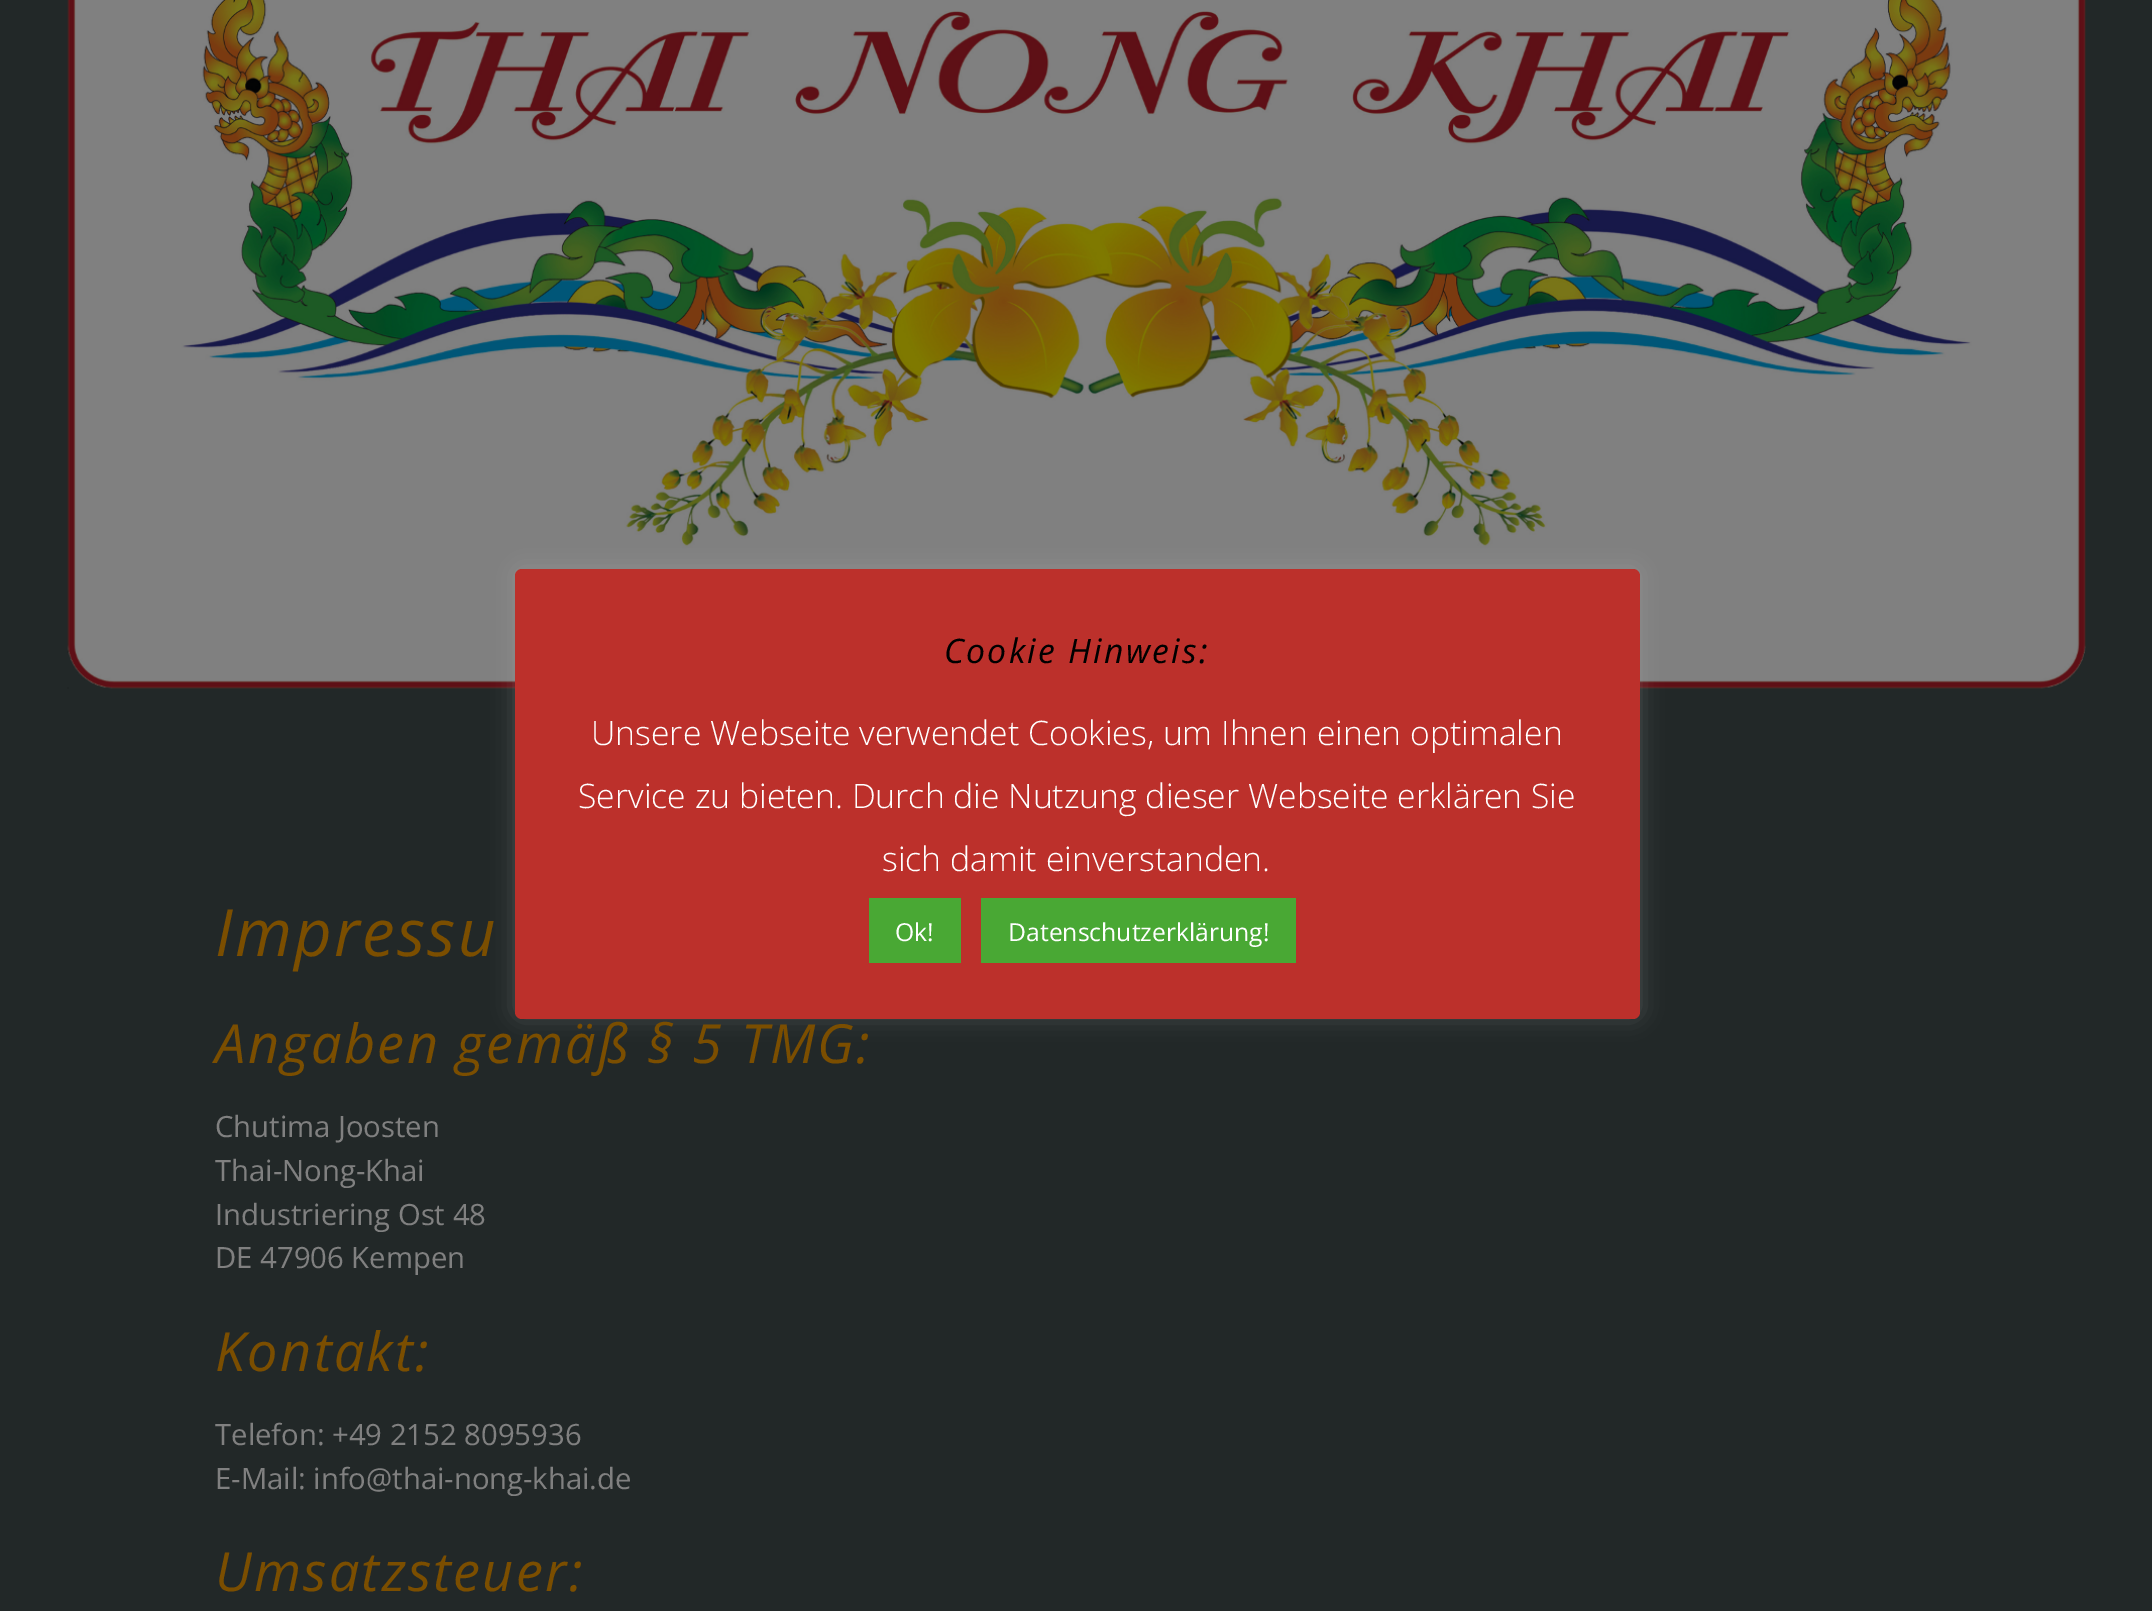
%!PS-Adobe-3.0
%%BoundingBox: 0 0 2152 1611
%%LanguageLevel: 3
%%Pages: 1
%%EndComments
%%BeginProlog
/setink { 3 { 255 div 3 1 roll } repeat setrgbcolor } def
/usefont { [ exch dup neg 0 0 3 -1 roll 0 0 ] selectfont } def
/drawtext { setink usefont moveto show } def
/fillbox { setink rectfill } def
/setalpha { dup .setfillconstantalpha .setstrokeconstantalpha } def
/rrect { 5 dict begin { /r /h /w /y /x } { exch def } forall
  x r add y moveto x w add y 2 copy h add r arct x w add y h add x 1 index r arct
  x y h add x y r arct x y 2 copy exch w add exch r arct closepath end } def
/softshadow { 12 dict begin { /a /b /q /h /w /y /x } { exch def } forall gsave /was 0 def
  9 -2 -9 { dup b mul 4 div /e exch def 1 sub .425 mul 2.718 exch exp 1 add a .99 .min exch div /now exch def
    1 1 now sub 1 was sub div sub setalpha /was now def
    w h .min e 2 mul add 0 gt { x e sub y e sub w e 2 mul add h e 2 mul add
      q e add b .6 mul add w h .min 2 div e add .min 0 .max rrect fill } if } for grestore end } def
/drawimage { 5 dict begin { /h /w /y /x /name } { exch def } forall
  gsave x y translate w h scale
  w h 8 [w 0 0 h 0 0] name (r) file false 3 colorimage grestore end } def
%%EndProlog
%%BeginSetup
<< /PageSize [2152 1611] /PageUsesTransparency true >> setpagedevice
%%EndSetup
%%Page: 1 1
0 .pushpdf14devicefilter
0 1611 translate 1 -1 scale
4 setmiterlimit
0 0 2152 1611 34 40 40 fillbox
(assets/img1.rgb) 67 0 2019 689 drawimage
172 171 171 setink
515 567 1125 450 7 11 0.3 softshadow
188 48 43 setink
515 569 1125 450 7 rrect fill
/OpenSans-Italic 33.75 usefont
0 0 0 setink
944 663 moveto 2.25 0 (Cookie Hinweis:) ashow
(Unsere Webseite verwendet Cookies, um Ihnen einen optimalen) 591 745 /OpenSans-Light 33.75 255 255 255 drawtext
(Service zu bieten. Durch die Nutzung dieser Webseite erklären Sie) 578 808 /OpenSans-Light 33.75 255 255 255 drawtext
(sich damit einverstanden.) 882 871 /OpenSans-Light 33.75 255 255 255 drawtext
869 898 92 65 73 168 52 fillbox
(Ok!) 895 941 /OpenSans-Regular 24.75 255 255 255 drawtext
981 898 315 65 73 168 52 fillbox
(Datenschutzerklärung!) 1008 941 /OpenSans-Regular 24.75 255 255 255 drawtext
/OpenSans-Italic 65.25 usefont
123 78 0 setink
215 956 moveto 2.25 0 (Impressu) ashow
/OpenSans-Italic 54 usefont
215 1063 moveto 2.25 0 (Angaben gemäß § 5 TMG:) ashow
(Chutima Joosten) 215 1137 /OpenSans-Regular 29.25 128 128 128 drawtext
(Thai-Nong-Khai) 215 1181 /OpenSans-Regular 29.25 128 128 128 drawtext
(Industriering Ost 48) 215 1225 /OpenSans-Regular 29.25 128 128 128 drawtext
(DE 47906 Kempen) 215 1268 /OpenSans-Regular 29.25 128 128 128 drawtext
/OpenSans-Italic 54 usefont
123 78 0 setink
215 1371 moveto 2.25 0 (Kontakt:) ashow
(Telefon: +49 2152 8095936) 215 1445 /OpenSans-Regular 29.25 128 128 128 drawtext
(E-Mail: info@thai-nong-khai.de) 215 1489 /OpenSans-Regular 29.25 128 128 128 drawtext
/OpenSans-Italic 54 usefont
123 78 0 setink
215 1591 moveto 2.25 0 (Umsatzsteuer:) ashow
.poppdf14devicefilter showpage
%%EOF
